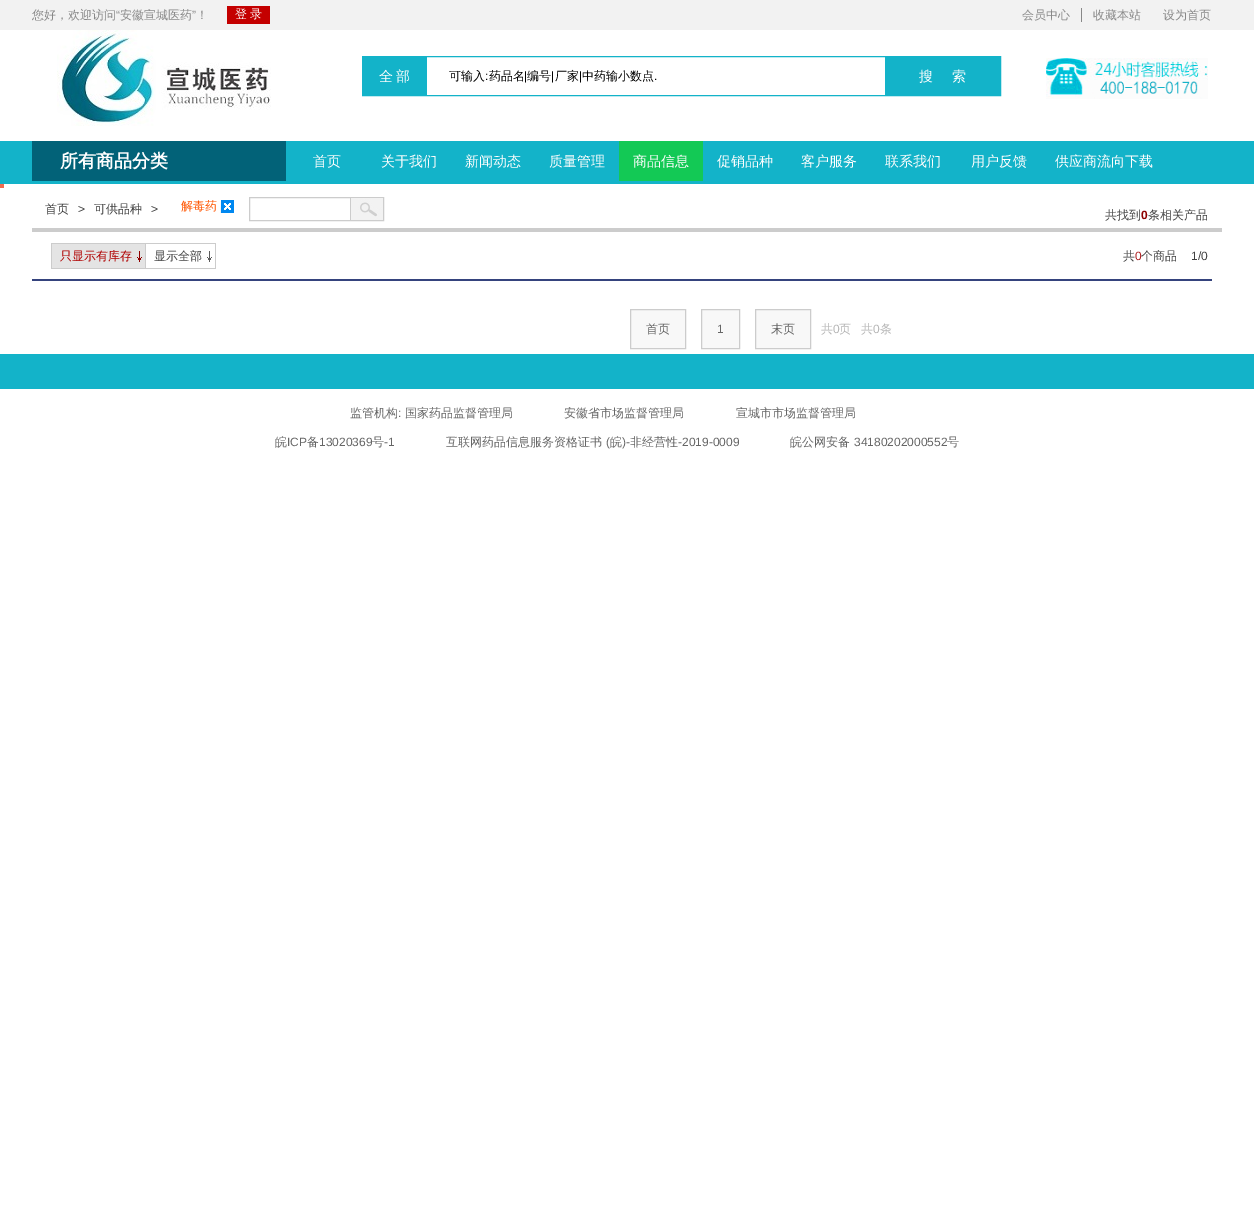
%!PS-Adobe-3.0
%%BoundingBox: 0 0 1254 1220
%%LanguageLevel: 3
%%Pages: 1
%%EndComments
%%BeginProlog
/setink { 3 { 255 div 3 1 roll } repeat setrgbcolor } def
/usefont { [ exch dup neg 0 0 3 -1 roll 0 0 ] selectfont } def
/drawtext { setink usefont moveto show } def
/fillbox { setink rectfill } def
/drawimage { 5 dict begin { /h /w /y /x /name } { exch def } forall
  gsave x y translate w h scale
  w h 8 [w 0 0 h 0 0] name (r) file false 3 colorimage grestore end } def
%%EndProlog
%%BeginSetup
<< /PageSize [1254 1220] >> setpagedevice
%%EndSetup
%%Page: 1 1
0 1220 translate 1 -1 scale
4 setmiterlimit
0 0 1254 1220 255 255 255 fillbox
0 0 1254 30 242 242 242 fillbox
(您好，欢迎访问) 32 19 /WenQuanYiZenHei-Medium 12 136 136 136 drawtext
(“) 116 19 /LiberationSans-Regular 12 136 136 136 drawtext
(安徽宣城医药) 120 19 /WenQuanYiZenHei-Medium 12 136 136 136 drawtext
(”) 192 19 /LiberationSans-Regular 12 136 136 136 drawtext
(！) 196 19 /WenQuanYiZenHei-Medium 12 136 136 136 drawtext
227 6 43 18 196 0 0 fillbox
254 254 254 setink
235 18 moveto 3 0 (登录) ashow
1081 8 1 14 136 136 136 fillbox
(会员中心) 1022 19 /WenQuanYiZenHei-Medium 12 136 136 136 drawtext
(收藏本站) 1093 19 /WenQuanYiZenHei-Medium 12 136 136 136 drawtext
(设为首页) 1163 19 /WenQuanYiZenHei-Medium 12 136 136 136 drawtext
(assets/img1.rgb) 57 30 214 96 drawimage
19 179 201 setink
362.5 56.5 638 39 rectstroke
363 57 64 38 19 179 201 fillbox
/WenQuanYiZenHei-Medium 14 usefont
254 254 254 setink
379 81 moveto 3 0 (全部) ashow
(可输入 药品名) 449 80 /WenQuanYiZenHei-Medium 12 0 0 0 drawtext
(|) 524 80 /LiberationSans-Regular 12 0 0 0 drawtext
(编号) 527 80 /WenQuanYiZenHei-Medium 12 0 0 0 drawtext
(|) 551 80 /LiberationSans-Regular 12 0 0 0 drawtext
(厂家) 555 80 /WenQuanYiZenHei-Medium 12 0 0 0 drawtext
(|) 579 80 /LiberationSans-Regular 12 0 0 0 drawtext
(中药输小数点) 582 80 /WenQuanYiZenHei-Medium 12 0 0 0 drawtext
(:) 485 80 /LiberationSans-Regular 12 0 0 0 drawtext
(.) 654 80 /LiberationSans-Regular 12 0 0 0 drawtext
885 57 115 38 19 179 201 fillbox
(搜) 919 81 /WenQuanYiZenHei-Medium 14 254 254 254 drawtext
(索) 952 81 /WenQuanYiZenHei-Medium 14 254 254 254 drawtext
(assets/img2.rgb) 1046 58 162 41 drawimage
0 141 1254 43 19 179 201 fillbox
32 141 254 40 2 98 120 fillbox
(所有商品分类) 60 167 /WenQuanYiZenHei-Bold 18 254 254 254 drawtext
(首页) 313 166 /WenQuanYiZenHei-Medium 14 254 254 254 drawtext
(关于我们) 381 166 /WenQuanYiZenHei-Medium 14 254 254 254 drawtext
(新闻动态) 465 166 /WenQuanYiZenHei-Medium 14 254 254 254 drawtext
(质量管理) 549 166 /WenQuanYiZenHei-Medium 14 254 254 254 drawtext
619 141 84 40 19 201 85 fillbox
(商品信息) 633 166 /WenQuanYiZenHei-Medium 14 254 254 254 drawtext
(促销品种) 717 166 /WenQuanYiZenHei-Medium 14 254 254 254 drawtext
(客户服务) 801 166 /WenQuanYiZenHei-Medium 14 254 254 254 drawtext
(联系我们) 885 166 /WenQuanYiZenHei-Medium 14 254 254 254 drawtext
(用户反馈) 971 166 /WenQuanYiZenHei-Medium 14 254 254 254 drawtext
(供应商流向下载) 1055 166 /WenQuanYiZenHei-Medium 14 254 254 254 drawtext
0 184 4 4 242 108 79 fillbox
32 228 1190 4 204 204 204 fillbox
(首页) 45 213 /WenQuanYiZenHei-Medium 12 64 64 64 drawtext
(>) 78 213 /LiberationSans-Regular 12 64 64 64 drawtext
(可供品种) 94 213 /WenQuanYiZenHei-Medium 12 64 64 64 drawtext
(>) 151 213 /LiberationSans-Regular 12 64 64 64 drawtext
(解毒药) 181 210 /WenQuanYiZenHei-Medium 12 255 85 0 drawtext
(assets/img3.rgb) 220 200 14 13 drawimage
204 204 204 setink
249.5 197.5 134 23 rectstroke
(assets/img4.rgb) 350 198 33 22 drawimage
(共找到) 1105 219 /WenQuanYiZenHei-Medium 12 64 64 64 drawtext
(0) 1141 219 /LiberationSans-Bold 12 143 1 0 drawtext
(条相关产品) 1148 219 /WenQuanYiZenHei-Medium 12 64 64 64 drawtext
51 243 165 1 204 204 204 fillbox
215 243 1 26 204 204 204 fillbox
51 268 165 1 204 204 204 fillbox
51 244 1 24 204 204 204 fillbox
52 244 93 24 228 228 228 fillbox
(assets/img5.rgb) 137 251 5 11 drawimage
(只显示有库存) 60 260 /WenQuanYiZenHei-Medium 12 176 0 0 drawtext
145 244 1 24 204 204 204 fillbox
(assets/img6.rgb) 207 251 5 11 drawimage
(显示全部) 154 260 /WenQuanYiZenHei-Medium 12 64 64 64 drawtext
(共) 1123 260 /WenQuanYiZenHei-Medium 12 64 64 64 drawtext
(0) 1135 260 /LiberationSans-Regular 12 172 29 31 drawtext
(个商品) 1141 260 /WenQuanYiZenHei-Medium 12 64 64 64 drawtext
(1/0) 1191 260 /LiberationSans-Regular 12 64 64 64 drawtext
32 279 1180 2 53 67 125 fillbox
248 248 248 setink
630.5 309.5 moveto 685.5 309.5 lineto 685.5 348.5 lineto 630.5 348.5 lineto closepath gsave fill grestore
204 204 204 setink
stroke
(首页) 646 333 /WenQuanYiZenHei-Medium 12 102 102 102 drawtext
248 248 248 setink
701.5 309.5 moveto 739.5 309.5 lineto 739.5 348.5 lineto 701.5 348.5 lineto closepath gsave fill grestore
204 204 204 setink
stroke
(1) 717 333 /LiberationSans-Regular 12 102 102 102 drawtext
248 248 248 setink
755.5 309.5 moveto 810.5 309.5 lineto 810.5 348.5 lineto 755.5 348.5 lineto closepath gsave fill grestore
204 204 204 setink
stroke
(末页) 771 333 /WenQuanYiZenHei-Medium 12 102 102 102 drawtext
(共) 821 333 /WenQuanYiZenHei-Medium 12 182 182 182 drawtext
(0) 833 333 /LiberationSans-Regular 12 182 182 182 drawtext
(页) 839 333 /WenQuanYiZenHei-Medium 12 182 182 182 drawtext
(共) 861 333 /WenQuanYiZenHei-Medium 12 182 182 182 drawtext
(0) 873 333 /LiberationSans-Regular 12 182 182 182 drawtext
(条) 880 333 /WenQuanYiZenHei-Medium 12 182 182 182 drawtext
0 354 1254 35 19 179 201 fillbox
(监管机构) 350 417 /WenQuanYiZenHei-Medium 12 102 102 102 drawtext
(:) 398 417 /LiberationSans-Regular 12 102 102 102 drawtext
(国家药品监督管理局) 405 417 /WenQuanYiZenHei-Medium 12 102 102 102 drawtext
(安徽省市场监督管理局) 564 417 /WenQuanYiZenHei-Medium 12 102 102 102 drawtext
(宣城市市场监督管理局) 736 417 /WenQuanYiZenHei-Medium 12 102 102 102 drawtext
(皖) 275 446 /WenQuanYiZenHei-Medium 12 102 102 102 drawtext
(ICP) 287 446 /LiberationSans-Regular 12 102 102 102 drawtext
(备) 307 446 /WenQuanYiZenHei-Medium 12 102 102 102 drawtext
(13020369) 319 446 /LiberationSans-Regular 12 102 102 102 drawtext
(号) 372 446 /WenQuanYiZenHei-Medium 12 102 102 102 drawtext
(-1) 384 446 /LiberationSans-Regular 12 102 102 102 drawtext
(互联网药品信息服务资格证书) 446 446 /WenQuanYiZenHei-Medium 12 102 102 102 drawtext
(\() 606 446 /LiberationSans-Regular 12 102 102 102 drawtext
(皖) 610 446 /WenQuanYiZenHei-Medium 12 102 102 102 drawtext
(\)-) 622 446 /LiberationSans-Regular 12 102 102 102 drawtext
(非经营性) 630 446 /WenQuanYiZenHei-Medium 12 102 102 102 drawtext
(-2019-0009) 678 446 /LiberationSans-Regular 12 102 102 102 drawtext
(皖公网安备) 790 446 /WenQuanYiZenHei-Medium 12 102 102 102 drawtext
(34180202000552) 854 446 /LiberationSans-Regular 12 102 102 102 drawtext
(号) 947 446 /WenQuanYiZenHei-Medium 12 102 102 102 drawtext
showpage
%%EOF
